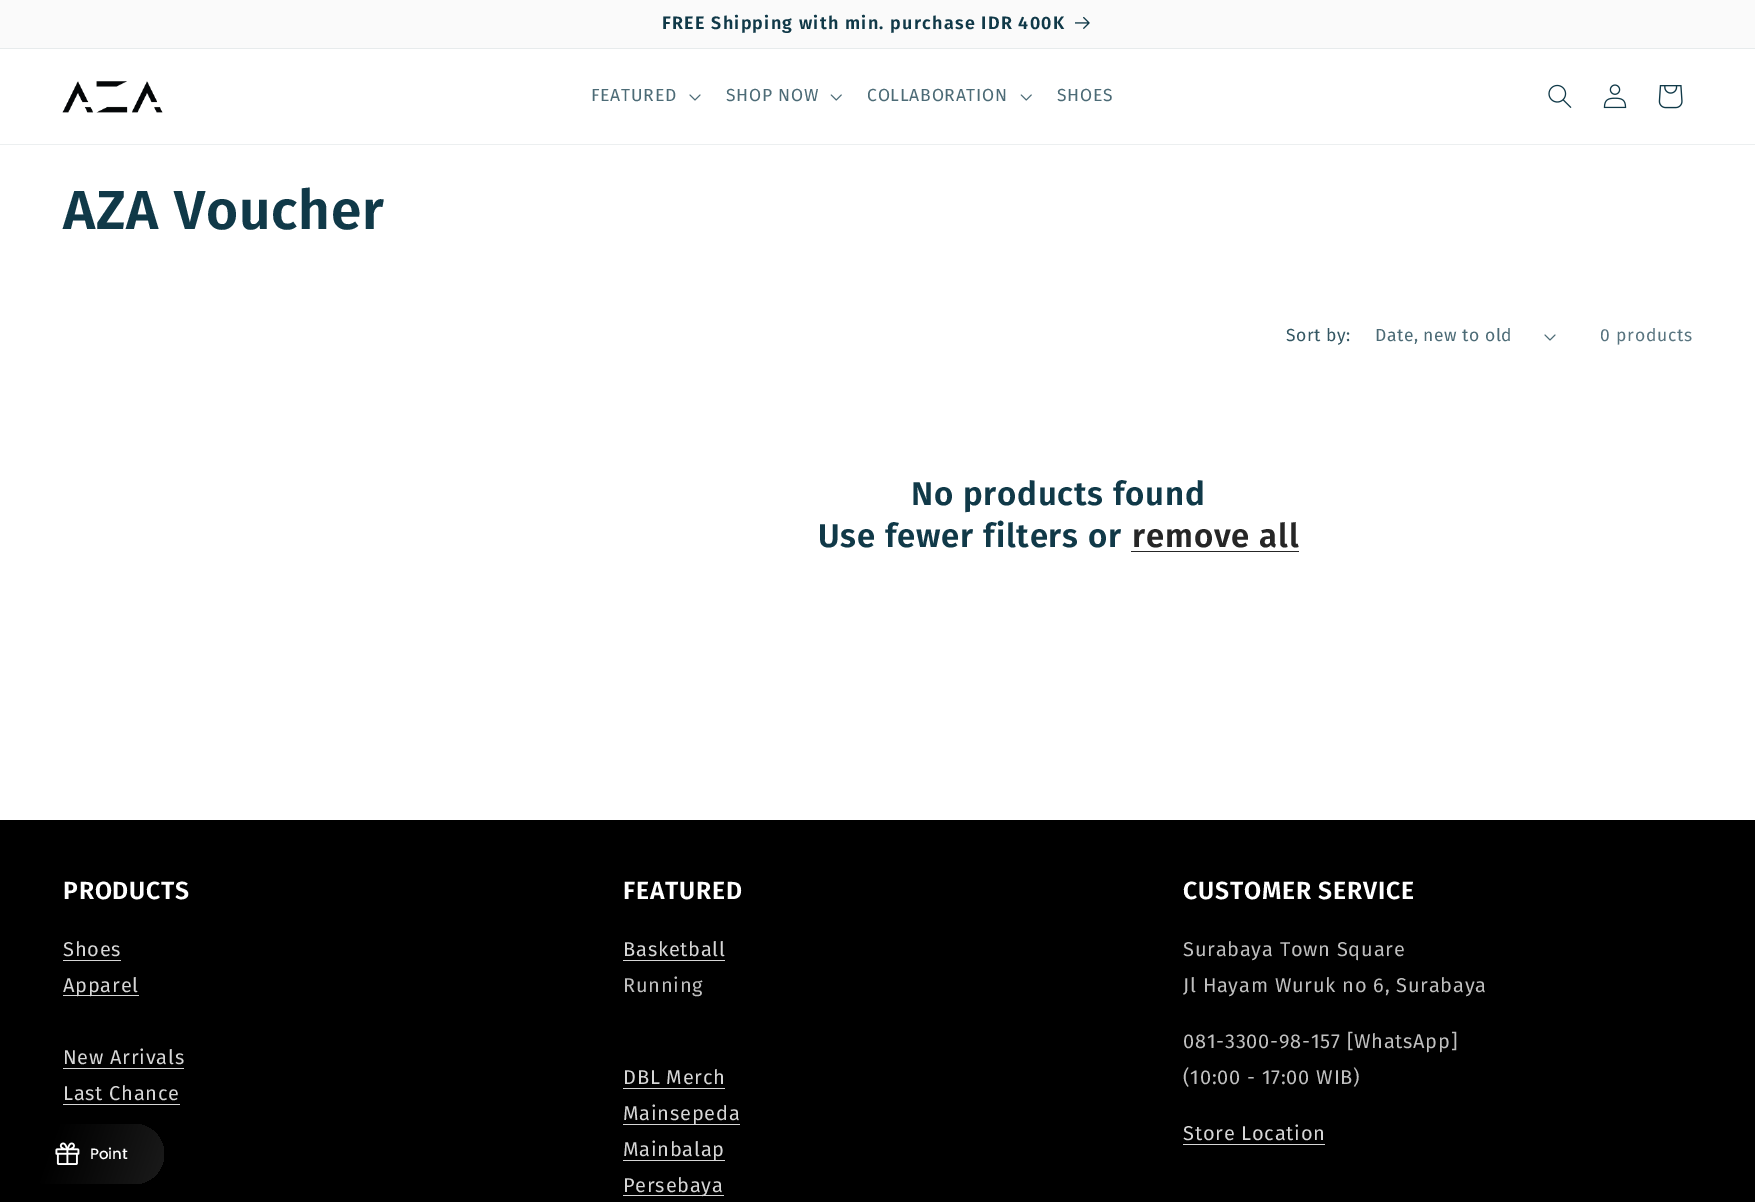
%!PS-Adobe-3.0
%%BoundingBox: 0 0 1755 1202
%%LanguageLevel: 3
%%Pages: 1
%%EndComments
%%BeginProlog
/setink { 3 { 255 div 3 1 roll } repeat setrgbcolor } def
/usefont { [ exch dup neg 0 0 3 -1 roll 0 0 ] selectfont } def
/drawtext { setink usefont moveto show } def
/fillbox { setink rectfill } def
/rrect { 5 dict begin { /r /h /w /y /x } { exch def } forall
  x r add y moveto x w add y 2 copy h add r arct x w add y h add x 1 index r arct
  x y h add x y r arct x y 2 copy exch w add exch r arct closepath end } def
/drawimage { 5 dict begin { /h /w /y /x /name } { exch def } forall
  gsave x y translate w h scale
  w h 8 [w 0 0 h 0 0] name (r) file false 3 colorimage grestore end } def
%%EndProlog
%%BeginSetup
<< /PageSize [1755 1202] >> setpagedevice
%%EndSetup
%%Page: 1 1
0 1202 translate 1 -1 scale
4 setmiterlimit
0 0 1755 1202 255 255 255 fillbox
0 0 1755 48 250 250 250 fillbox
0 48 1755 1 231 235 236 fillbox
/FiraSans-SemiBold 17.9 usefont
16 57 72 setink
662 29 moveto 1.25 0 (FREE Shipping with min. purchase IDR 400K) ashow
(assets/img1.rgb) 1075 16 15 13 drawimage
0 144 1755 1 236 239 240 fillbox
(assets/img2.rgb) 62 81 101 32 drawimage
/FiraSans-Regular 17.5 usefont
76 107 118 setink
591 101 moveto 0.75 0 (FEATURED) ashow
(assets/img3.rgb) 689 94 12 7 drawimage
726 101 moveto 0.75 0 (SHOP NOW) ashow
(assets/img4.rgb) 830 94 12 7 drawimage
867 101 moveto 0.75 0 (COLLABORATION) ashow
(assets/img4.rgb) 1020 94 12 7 drawimage
1057 101 moveto 0.75 0 (SHOES) ashow
(assets/img5.rgb) 1548 84 24 24 drawimage
(assets/img6.rgb) 1603 84 24 25 drawimage
(assets/img7.rgb) 1658 85 25 24 drawimage
/FiraSans-SemiBold 55 usefont
16 57 72 setink
63 229 moveto 0.8 0 (AZA Voucher) ashow
/FiraSans-Regular 17.5 usefont
52 87 99 setink
1286 341 moveto 0.5 0 (Sort by:) ashow
76 107 118 setink
1375 341 moveto 0.5 0 (Date, new to old) ashow
(assets/img3.rgb) 1544 334 12 7 drawimage
88 116 127 setink
1600 341 moveto 0.75 0 (0 products) ashow
/FiraSans-SemiBold 33 usefont
16 57 72 setink
911 505 moveto 0.8 0 (No products found) ashow
818 547 moveto 0.8 0 (Use fewer filters or) ashow
38 38 38 setink
1132 547 moveto 0.8 0 (remove all) ashow
1131 551 168 1 38 38 38 fillbox
0 820 1755 382 0 0 0 fillbox
/FiraSans-SemiBold 24.75 usefont
255 255 255 setink
63 899 moveto 0.8 0 (PRODUCTS) ashow
/FiraSans-Regular 20 usefont
214 214 214 setink
63 956 moveto 0.75 0 (Shoes) ashow
63 960 58 1 214 214 214 fillbox
63 995 76 1 214 214 214 fillbox
63 992 moveto 0.75 0 (Apparel) ashow
63 1064 moveto 0.75 0 (New Arrivals) ashow
63 1068 121 1 214 214 214 fillbox
63 1100 moveto 0.75 0 (Last Chance) ashow
63 1104 117 1 214 214 214 fillbox
/FiraSans-SemiBold 24.75 usefont
255 255 255 setink
623 899 moveto 0.8 0 (FEATURED) ashow
/FiraSans-Regular 20 usefont
214 214 214 setink
623 956 moveto 0.75 0 (Basketball) ashow
623 960 102 1 214 214 214 fillbox
191 191 191 setink
623 992 moveto 0.75 0 (Running) ashow
214 214 214 setink
623 1084 moveto 0.75 0 (DBL Merch) ashow
623 1088 102 1 214 214 214 fillbox
623 1124 117 1 214 214 214 fillbox
623 1120 moveto 0.75 0 (Mainsepeda) ashow
623 1160 102 1 214 214 214 fillbox
623 1156 moveto 0.75 0 (Mainbalap) ashow
623 1195 101 1 214 214 214 fillbox
623 1192 moveto 0.75 0 (Persebaya) ashow
/FiraSans-SemiBold 24.75 usefont
255 255 255 setink
1183 899 moveto 0.8 0 (CUSTOMER SERVICE) ashow
/FiraSans-Regular 20 usefont
191 191 191 setink
1183 956 moveto 0.75 0 (Surabaya Town Square) ashow
1183 992 moveto 0.75 0 (Jl Hayam Wuruk no 6, Surabaya) ashow
1183 1048 moveto 0.75 0 (081-3300-98-157 [WhatsApp]) ashow
1183 1084 moveto 0.75 0 (\(10:00 - 17:00 WIB\)) ashow
214 214 214 setink
1183 1140 moveto 0.75 0 (Store Location) ashow
1183 1144 142 1 214 214 214 fillbox
gsave 19 1124 145 60 30 rrect clip newpath
<< /ShadingType 2 /ColorSpace /DeviceRGB /Coords [17 1128 224 1201] /Extend [true true] /Function << /FunctionType 3 /Domain [0 1] /Functions [<< /FunctionType 2 /Domain [0 1] /C0 [0 0 0] /C1 [0 0 0] /N 1 >> << /FunctionType 2 /Domain [0 1] /C0 [0 0 0] /C1 [0.161 0.161 0.161] /N 1 >>] /Bounds [0.17] /Encode [0 1 0 1] >> >> shfill grestore
(assets/img8.rgb) 55 1142 25 23 drawimage
(Point) 90 1159 /Poppins-Medium 15 255 255 255 drawtext
showpage
%%EOF
